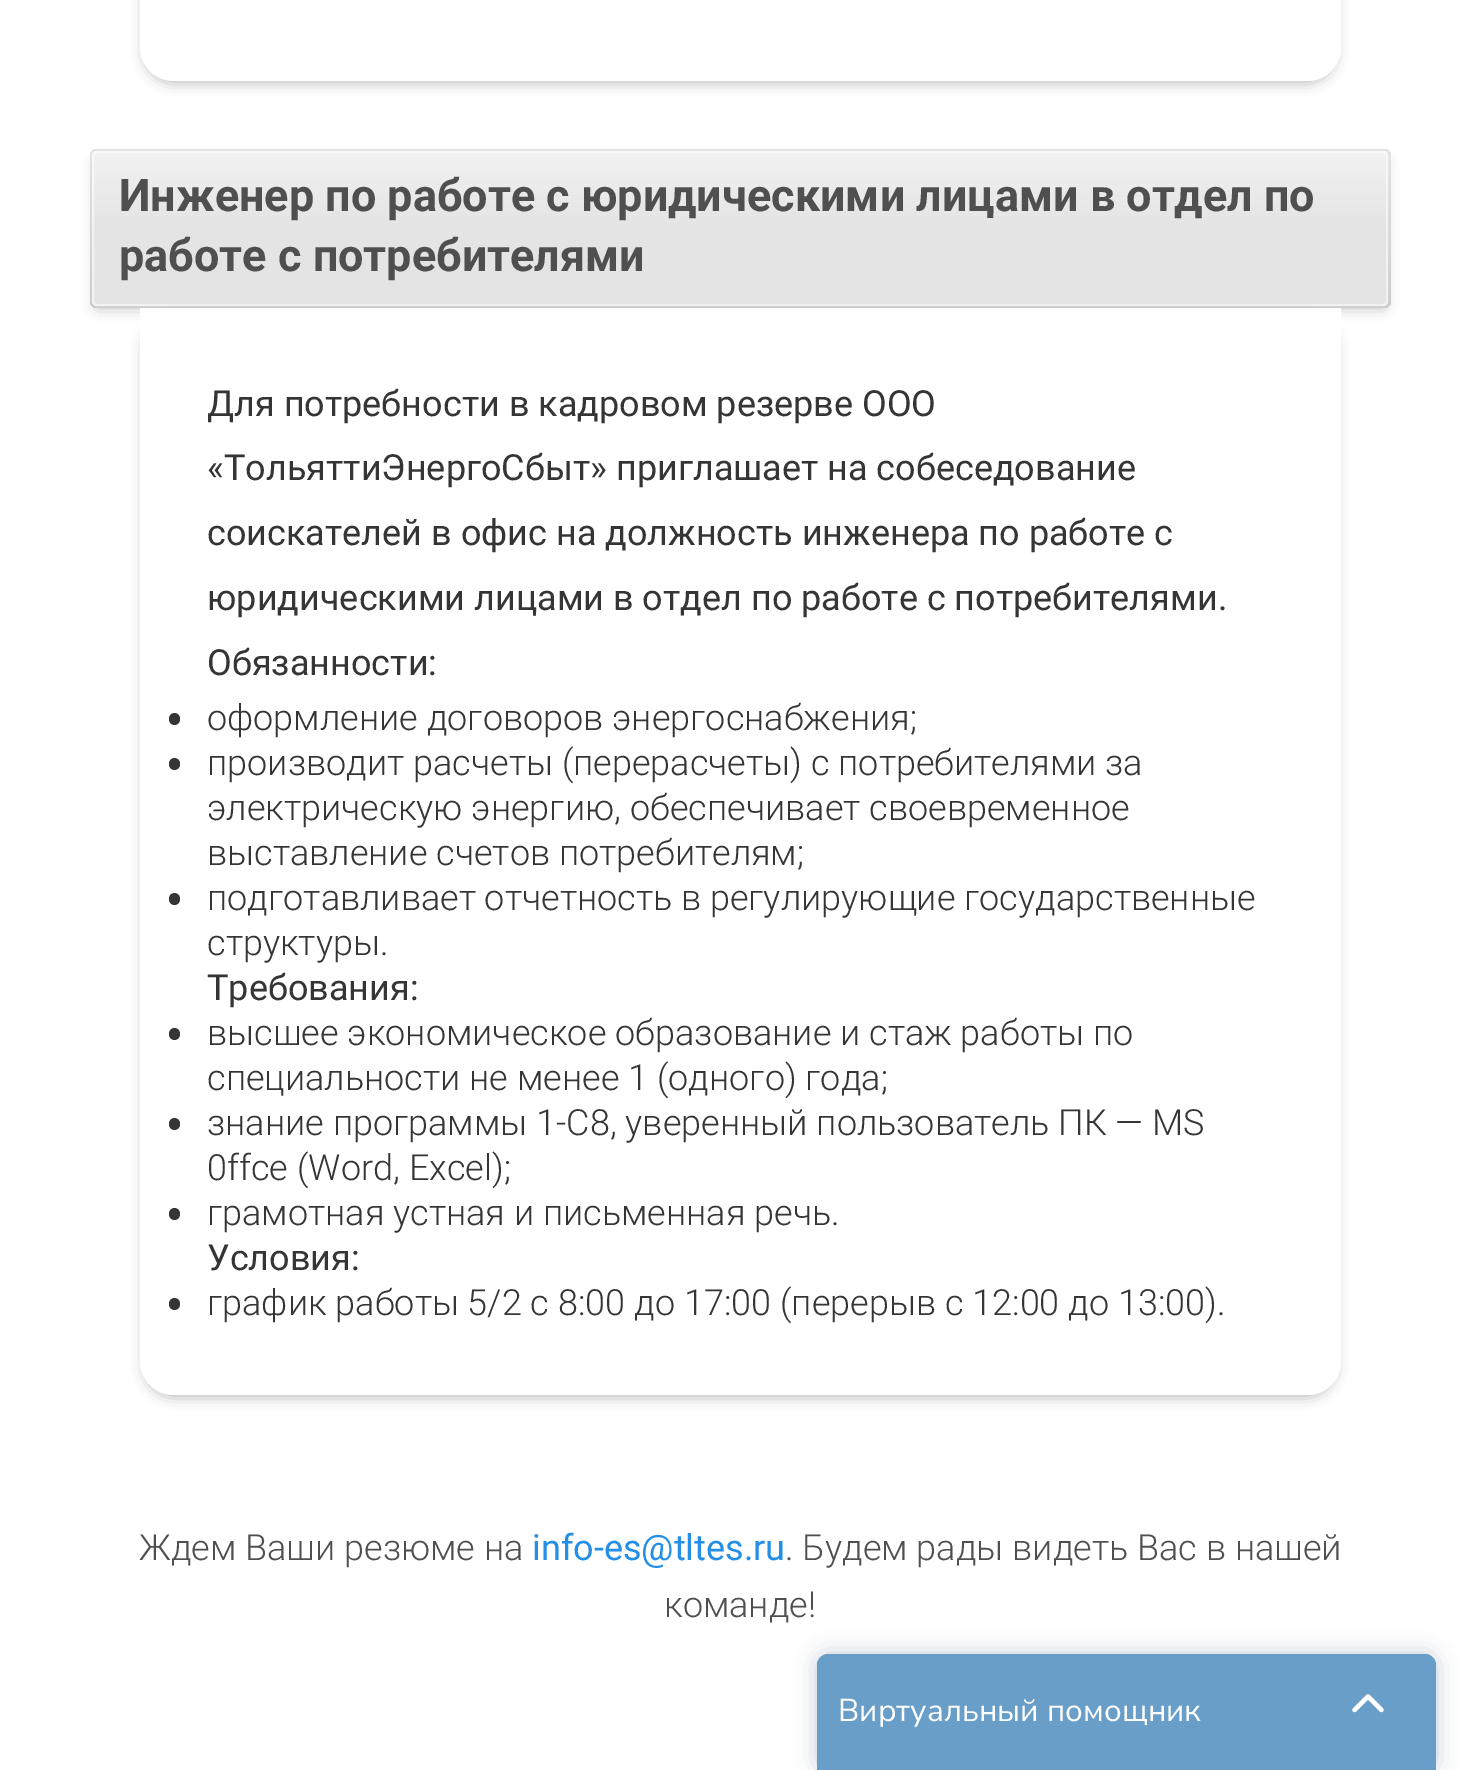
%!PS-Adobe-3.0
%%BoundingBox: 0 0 1479 1770
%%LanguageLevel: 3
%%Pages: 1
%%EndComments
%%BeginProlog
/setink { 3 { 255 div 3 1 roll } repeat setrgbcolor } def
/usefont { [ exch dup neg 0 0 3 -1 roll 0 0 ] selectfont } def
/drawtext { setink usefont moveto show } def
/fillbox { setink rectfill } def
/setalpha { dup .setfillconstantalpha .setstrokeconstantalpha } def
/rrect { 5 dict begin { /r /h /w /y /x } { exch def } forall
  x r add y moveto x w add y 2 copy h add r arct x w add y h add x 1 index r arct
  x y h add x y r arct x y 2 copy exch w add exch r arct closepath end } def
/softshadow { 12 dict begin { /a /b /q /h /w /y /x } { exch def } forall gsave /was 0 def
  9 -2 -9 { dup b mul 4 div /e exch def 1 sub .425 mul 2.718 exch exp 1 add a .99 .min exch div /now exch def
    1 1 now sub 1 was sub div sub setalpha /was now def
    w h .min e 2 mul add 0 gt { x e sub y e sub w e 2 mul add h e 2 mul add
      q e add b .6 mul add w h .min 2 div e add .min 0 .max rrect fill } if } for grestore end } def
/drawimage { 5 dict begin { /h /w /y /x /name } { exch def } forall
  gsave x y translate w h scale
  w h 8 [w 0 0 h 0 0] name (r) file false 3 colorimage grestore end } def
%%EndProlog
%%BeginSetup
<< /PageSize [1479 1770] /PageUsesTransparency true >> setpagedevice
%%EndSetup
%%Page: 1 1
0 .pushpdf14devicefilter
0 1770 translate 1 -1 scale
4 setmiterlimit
0 0 1479 1770 255 255 255 fillbox
0 0 0 setink
146 -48 1188 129 27 7 0.35 softshadow
255 255 255 setink
140 -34 moveto 1341 -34 lineto 1341 47 lineto 1341 66 1326 81 1307 81 curveto 174 81 lineto 155 81 140 66 140 47 curveto closepath fill
0.5 setalpha
2 setlinewidth
141 -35 moveto 1340 -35 lineto 1340 47 lineto 1340 65 1325 80 1307 80 curveto 174 80 lineto 156 80 141 65 141 47 curveto closepath stroke
1 setalpha
0 0 0 setink
97 162 1287 146 0 7 0.25 softshadow
gsave 90 149 1301 159 7 rrect clip newpath
<< /ShadingType 2 /ColorSpace /DeviceRGB /Coords [740 148 740 308] /Extend [true true] /Function << /FunctionType 2 /Domain [0 1] /C0 [0.894 0.894 0.894] /C1 [0.8 0.8 0.8] /N 1 >> >> shfill grestore
gsave 92 151 1296 155 5 rrect clip newpath
<< /ShadingType 2 /ColorSpace /DeviceRGB /Coords [740 151 740 306] /Extend [true true] /Function << /FunctionType 3 /Domain [0 1] /Functions [<< /FunctionType 2 /Domain [0 1] /C0 [0.949 0.949 0.949] /C1 [0.894 0.894 0.894] /N 1 >> << /FunctionType 2 /Domain [0 1] /C0 [0.894 0.894 0.894] /C1 [0.894 0.894 0.894] /N 1 >>] /Bounds [0.5] /Encode [0 1 0 1] >> >> shfill grestore
0.5 setalpha
255 255 255 setink
93 152 1294 153 4 rrect stroke
1 setalpha
(Инженер по работе с юридическими лицами в отдел по) 119 211 /Roboto-Bold 45 79 79 79 drawtext
(работе с потребителями) 119 271 /Roboto-Bold 45 79 79 79 drawtext
0 0 0 setink
146 322 1188 1073 27 7 0.35 softshadow
255 255 255 setink
140 308 moveto 1341 308 lineto 1341 1361 lineto 1341 1380 1326 1395 1307 1395 curveto 174 1395 lineto 155 1395 140 1380 140 1361 curveto closepath fill
0.5 setalpha
141 309 moveto 1340 309 lineto 1340 1361 lineto 1340 1379 1325 1394 1307 1394 curveto 174 1394 lineto 156 1394 141 1379 141 1361 curveto closepath stroke
1 setalpha
(Для потребности в кадровом резерве ООО) 207 416 /Roboto-Regular 36 54 53 53 drawtext
(«ТольяттиЭнергоСбыт» приглашает на собеседование) 207 480 /Roboto-Regular 36 54 53 53 drawtext
(соискателей в офис на должность инженера по работе с) 207 545 /Roboto-Regular 36 54 53 53 drawtext
(юридическими лицами в отдел по работе с потребителями.) 207 610 /Roboto-Regular 36 54 53 53 drawtext
(Обязанности:) 207 675 /Roboto-Regular 36 54 53 53 drawtext
169 713 11 12 5.5 rrect fill
(оформление договоров энергоснабжения;) 207 730 /Roboto-Light 36 54 53 53 drawtext
169 758 11 12 5.5 rrect fill
(производит расчеты \(перерасчеты\) с потребителями за) 207 775 /Roboto-Light 36 54 53 53 drawtext
(электрическую энергию, обеспечивает своевременное) 207 820 /Roboto-Light 36 54 53 53 drawtext
(выставление счетов потребителям;) 207 865 /Roboto-Light 36 54 53 53 drawtext
169 893 11 12 5.5 rrect fill
(подготавливает отчетность в регулирующие государственные) 207 910 /Roboto-Light 36 54 53 53 drawtext
(структуры.) 207 955 /Roboto-Light 36 54 53 53 drawtext
(Требования:) 207 1000 /Roboto-Regular 36 54 53 53 drawtext
169 1028 11 12 5.5 rrect fill
(высшее экономическое образование и стаж работы по) 207 1045 /Roboto-Light 36 54 53 53 drawtext
(специальности не менее 1 \(одного\) года;) 207 1090 /Roboto-Light 36 54 53 53 drawtext
169 1118 11 12 5.5 rrect fill
(знание программы 1-С8, уверенный пользователь ПК — MS) 207 1135 /Roboto-Light 36 54 53 53 drawtext
(0ffce \(Word, Excel\);) 207 1180 /Roboto-Light 36 54 53 53 drawtext
169 1208 11 12 5.5 rrect fill
(грамотная устная и письменная речь.) 207 1225 /Roboto-Light 36 54 53 53 drawtext
(Условия:) 207 1270 /Roboto-Regular 36 54 53 53 drawtext
169 1298 11 12 5.5 rrect fill
(график работы 5/2 с 8:00 до 17:00 \(перерыв с 12:00 до 13:00\).) 207 1315 /Roboto-Light 36 54 53 53 drawtext
(Ждем Ваши резюме на) 139 1560 /Roboto-Light 36 79 79 79 drawtext
(info-es@tltes.ru) 532 1560 /Roboto-Regular 36 37 143 230 drawtext
(. Будем рады видеть Вас в нашей) 785 1560 /Roboto-Light 36 79 79 79 drawtext
(команде!) 664 1617 /Roboto-Light 36 79 79 79 drawtext
191 202 214 setink
817 1654 619 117 11 11 1 softshadow
105 158 201 setink
828 1654 moveto 1425 1654 lineto 1431 1654 1436 1659 1436 1665 curveto 1436 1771 lineto 817 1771 lineto 817 1665 lineto 817 1659 822 1654 828 1654 curveto closepath fill
(Виртуальный помощник) 838 1721 /NunitoSans-ExtraLight 31.5 255 255 255 drawtext
(assets/img1.rgb) 1352 1694 32 19 drawimage
.poppdf14devicefilter showpage
%%EOF
